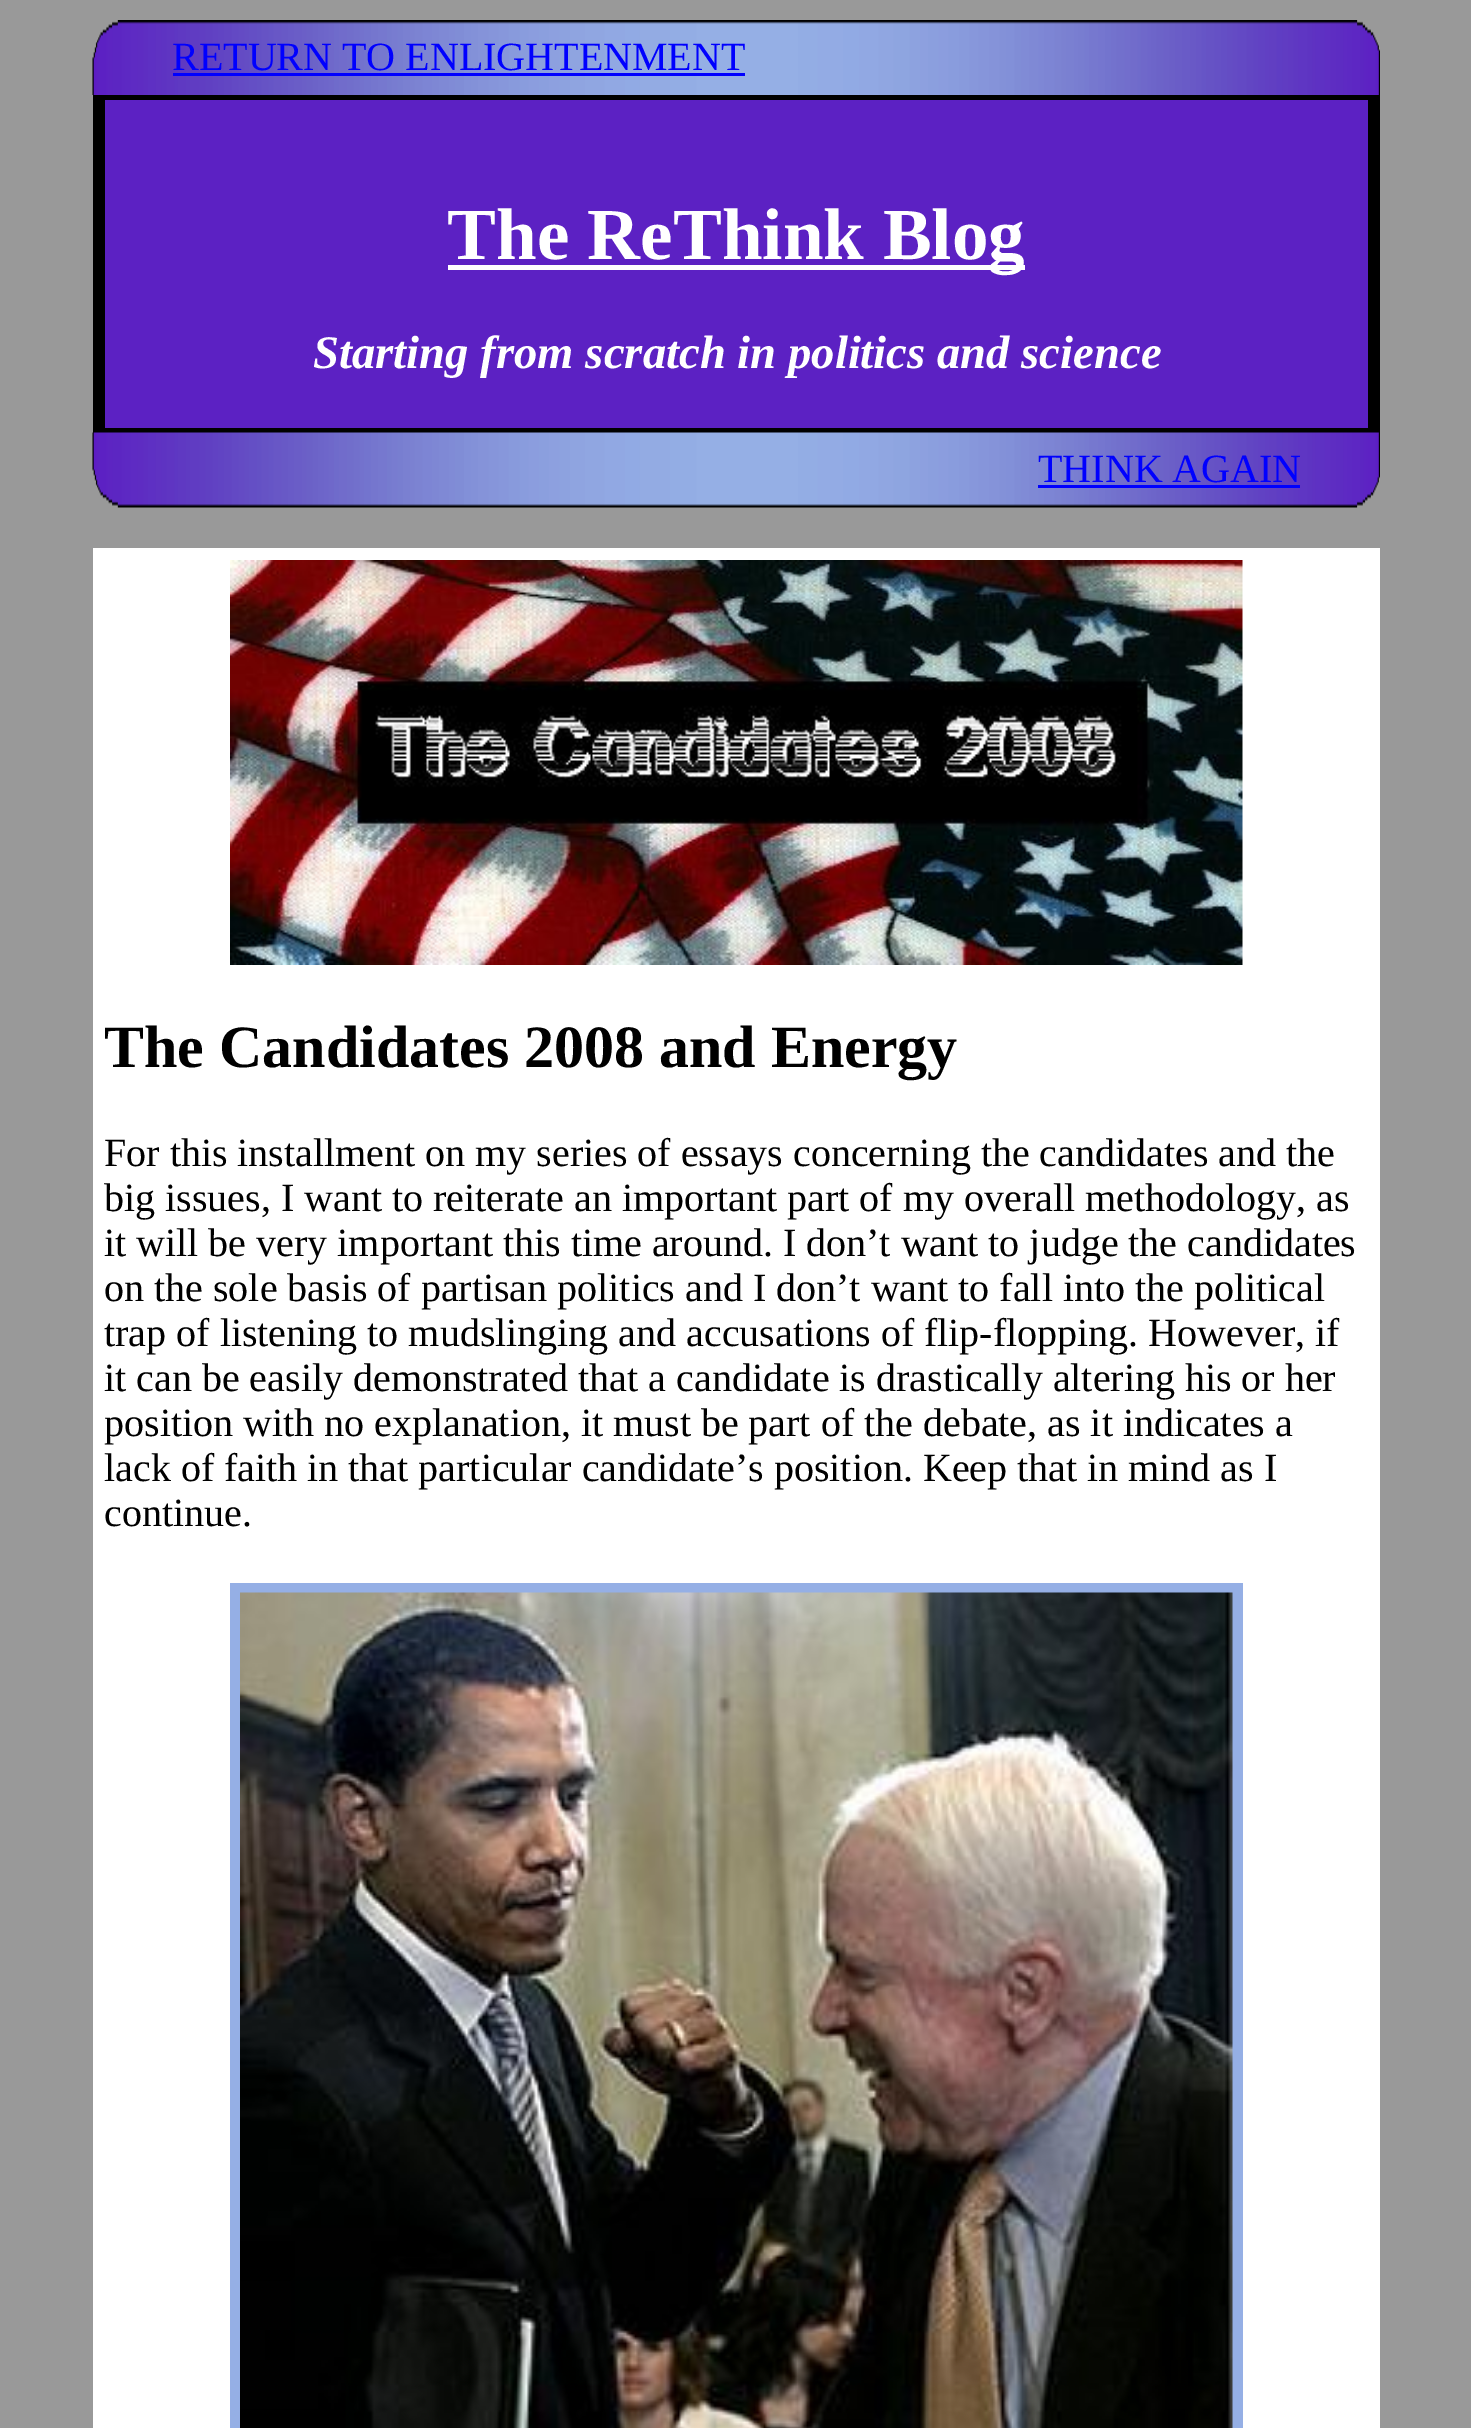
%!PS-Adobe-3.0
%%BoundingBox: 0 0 1471 2428
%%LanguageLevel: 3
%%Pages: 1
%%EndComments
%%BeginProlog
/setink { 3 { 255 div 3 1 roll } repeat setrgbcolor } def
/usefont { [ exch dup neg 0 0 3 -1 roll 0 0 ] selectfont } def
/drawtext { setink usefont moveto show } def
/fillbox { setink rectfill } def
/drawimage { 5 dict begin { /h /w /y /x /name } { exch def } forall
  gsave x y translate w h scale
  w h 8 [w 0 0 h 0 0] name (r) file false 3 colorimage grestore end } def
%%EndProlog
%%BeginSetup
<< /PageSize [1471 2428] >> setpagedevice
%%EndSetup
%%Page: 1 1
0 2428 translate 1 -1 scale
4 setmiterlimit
0 0 1471 2428 153 153 153 fillbox
(assets/img1.rgb) 92 20 1288 75 drawimage
(RETURN TO ENLIGHTENMENT) 172 70 /LiberationSerif-Regular 40 0 0 255 drawtext
173 73 572 3 0 0 255 fillbox
93 95 1287 5 0 0 0 fillbox
105 100 1263 328 92 33 195 fillbox
93 100 12 328 0 0 0 fillbox
448 265 577 5 255 255 255 fillbox
(The ReThink Blog) 447 259 /LiberationSerif-Bold 73.25 255 255 255 drawtext
(Starting from scratch in politics and science) 313 368 /LiberationSerif-BoldItalic 46.7 255 255 255 drawtext
1368 100 12 328 0 0 0 fillbox
93 428 1287 5 0 0 0 fillbox
(assets/img2.rgb) 92 432 1288 76 drawimage
(THINK AGAIN) 1038 482 /LiberationSerif-Regular 40 0 0 255 drawtext
1038 485 262 3 0 0 255 fillbox
93 548 1287 1880 255 255 255 fillbox
(assets/img3.rgb) 230 560 1013 405 drawimage
(The Candidates 2008 and Energy) 104 1067 /LiberationSerif-Bold 60 0 0 0 drawtext
(For this installment on my series of essays concerning the candidates and the) 104 1166 /LiberationSerif-Regular 40 0 0 0 drawtext
(big issues, I want to reiterate an important part of my overall methodology, as) 104 1211 /LiberationSerif-Regular 40 0 0 0 drawtext
(it will be very important this time around. I don’t want to judge the candidates) 104 1256 /LiberationSerif-Regular 40 0 0 0 drawtext
(on the sole basis of partisan politics and I don’t want to fall into the political) 104 1301 /LiberationSerif-Regular 40 0 0 0 drawtext
(trap of listening to mudslinging and accusations of flip-flopping. However, if) 104 1346 /LiberationSerif-Regular 40 0 0 0 drawtext
(it can be easily demonstrated that a candidate is drastically altering his or her) 104 1391 /LiberationSerif-Regular 40 0 0 0 drawtext
(position with no explanation, it must be part of the debate, as it indicates a) 104 1436 /LiberationSerif-Regular 40 0 0 0 drawtext
(lack of faith in that particular candidate’s position. Keep that in mind as I) 104 1481 /LiberationSerif-Regular 40 0 0 0 drawtext
(continue.) 104 1526 /LiberationSerif-Regular 40 0 0 0 drawtext
230 1583 1013 845 149 175 229 fillbox
(assets/img4.rgb) 240 1592 993 836 drawimage
showpage
%%EOF
